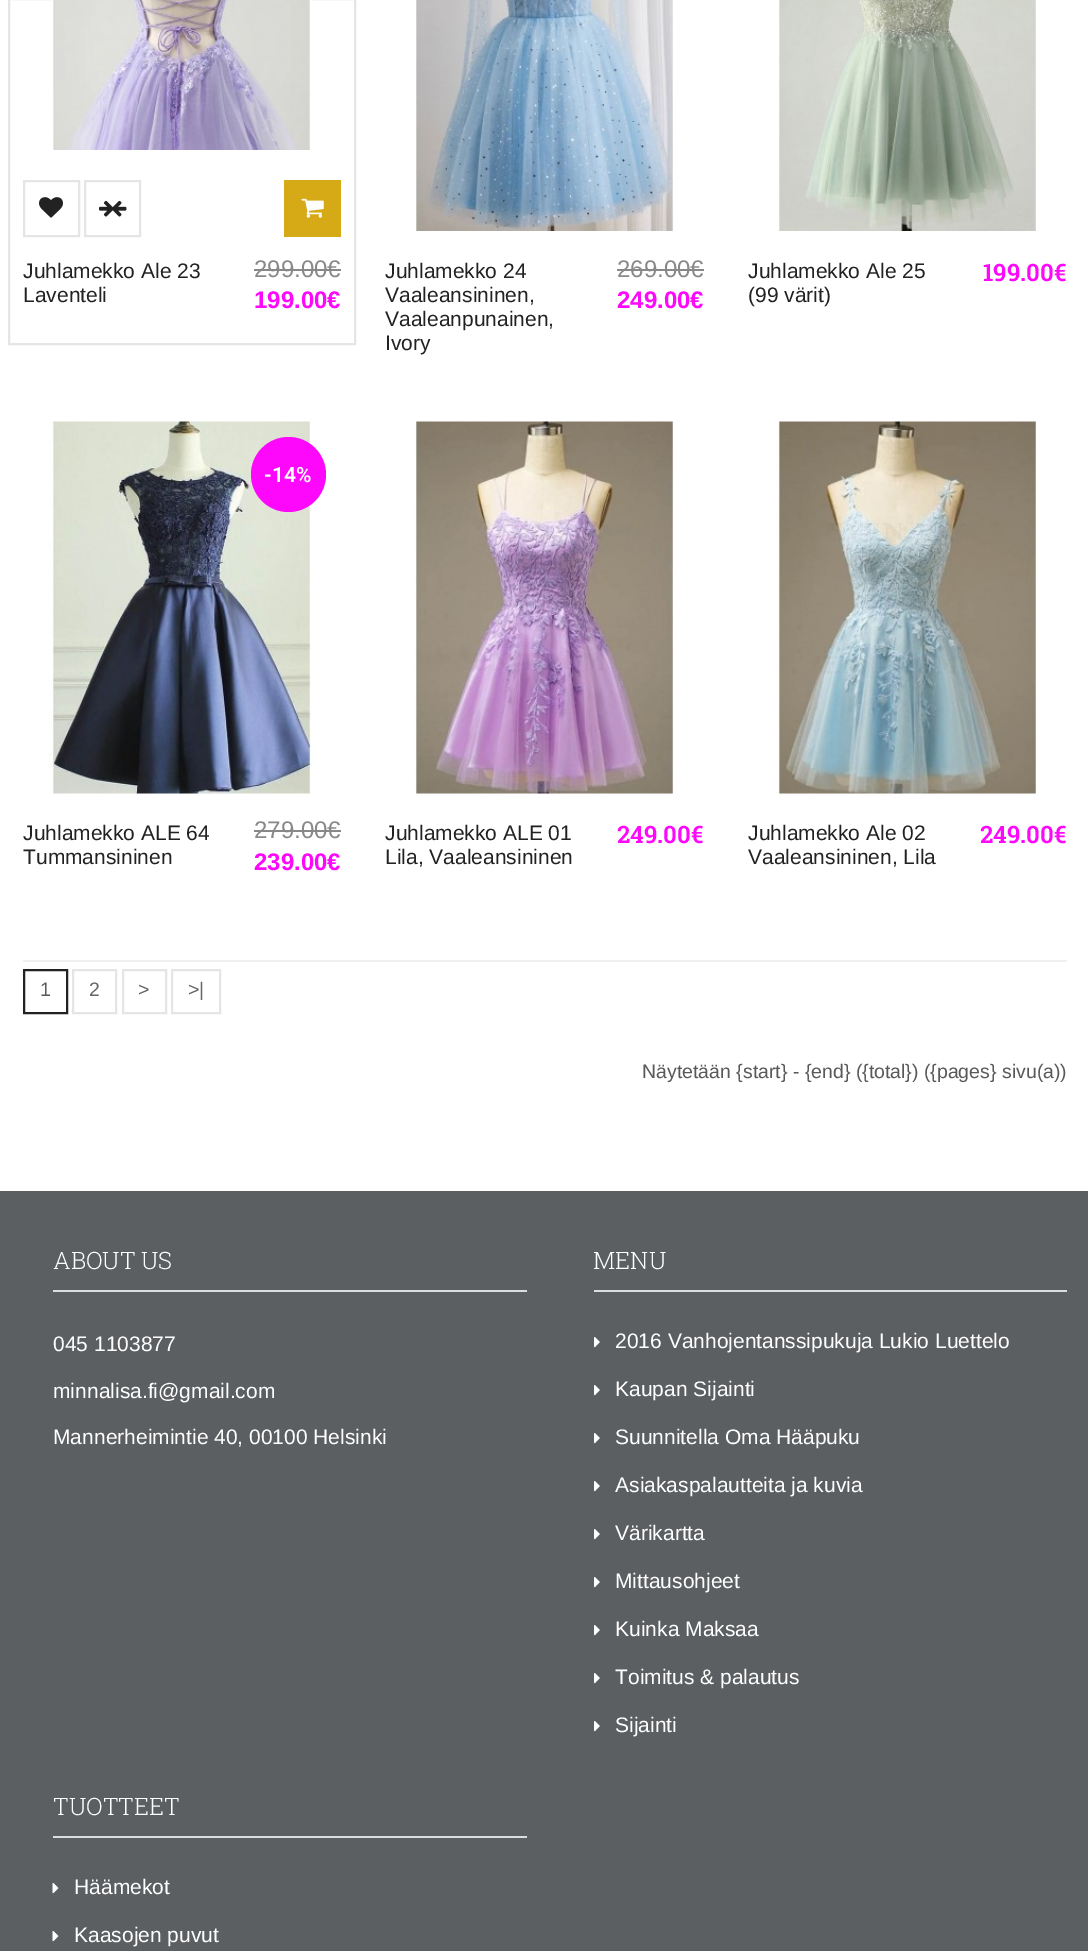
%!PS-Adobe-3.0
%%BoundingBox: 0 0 1088 1951
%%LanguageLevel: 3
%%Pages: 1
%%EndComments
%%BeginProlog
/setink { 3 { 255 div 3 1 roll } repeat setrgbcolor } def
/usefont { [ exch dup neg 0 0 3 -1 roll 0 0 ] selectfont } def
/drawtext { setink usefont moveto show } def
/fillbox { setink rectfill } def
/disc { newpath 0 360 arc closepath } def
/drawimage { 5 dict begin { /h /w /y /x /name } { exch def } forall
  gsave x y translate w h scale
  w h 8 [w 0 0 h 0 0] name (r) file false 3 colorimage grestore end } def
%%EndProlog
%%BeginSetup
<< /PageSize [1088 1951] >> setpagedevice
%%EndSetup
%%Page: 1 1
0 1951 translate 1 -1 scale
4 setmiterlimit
0 0 1088 1951 255 255 255 fillbox
229 229 229 setink
2 setlinewidth
9 -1 346 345 rectstroke
(assets/img1.rgb) 52 0 259 150 drawimage
24 181 55 55 rectstroke
(assets/img2.rgb) 39 197 24 21 drawimage
85 181 55 55 rectstroke
(assets/img3.rgb) 99 200 14 17 drawimage
(assets/img4.rgb) 112 200 15 17 drawimage
284 180 57 57 214 169 22 fillbox
(assets/img5.rgb) 301 198 23 20 drawimage
(Juhlamekko Ale 23) 23 278 /LiberationSans-Regular 21 34 34 34 drawtext
(Laventeli) 23 302 /LiberationSans-Regular 21 34 34 34 drawtext
(299.00€) 254 277 /LiberationSans-Regular 24 136 136 136 drawtext
254 269 87 2 136 136 136 fillbox
(199.00€) 254 308 /LiberationSans-Bold 24 253 8 251 drawtext
(assets/img6.rgb) 415 0 259 231 drawimage
(Juhlamekko 24) 385 278 /LiberationSans-Regular 21 34 34 34 drawtext
(Vaaleansininen,) 385 302 /LiberationSans-Regular 21 34 34 34 drawtext
(Vaaleanpunainen,) 385 326 /LiberationSans-Regular 21 34 34 34 drawtext
(Ivory) 385 350 /LiberationSans-Regular 21 34 34 34 drawtext
(269.00€) 617 277 /LiberationSans-Regular 24 136 136 136 drawtext
617 269 87 2 136 136 136 fillbox
(249.00€) 617 308 /LiberationSans-Bold 24 253 8 251 drawtext
(assets/img7.rgb) 778 0 259 231 drawimage
(Juhlamekko Ale 25) 748 278 /LiberationSans-Regular 21 34 34 34 drawtext
(\(99 värit\)) 748 302 /LiberationSans-Regular 21 34 34 34 drawtext
(199.00€) 983 281 /RobotoSlab-SemiBold 24 253 8 251 drawtext
(assets/img8.rgb) 48 421 263 373 drawimage
288.5 474.5 37.5 disc fill
(-14%) 264 482 /Roboto-SemiBold 21 255 255 255 drawtext
(Juhlamekko ALE 64) 23 840 /LiberationSans-Regular 21 34 34 34 drawtext
(Tummansininen) 23 864 /LiberationSans-Regular 21 34 34 34 drawtext
(279.00€) 254 838 /LiberationSans-Regular 24 136 136 136 drawtext
254 830 87 2 136 136 136 fillbox
(239.00€) 254 870 /LiberationSans-Bold 24 253 8 251 drawtext
(assets/img9.rgb) 414 421 260 373 drawimage
(Juhlamekko ALE 01) 385 840 /LiberationSans-Regular 21 34 34 34 drawtext
(Lila, Vaaleansininen) 385 864 /LiberationSans-Regular 21 34 34 34 drawtext
(249.00€) 617 843 /RobotoSlab-SemiBold 24 253 8 251 drawtext
(assets/img10.rgb) 777 421 260 373 drawimage
(Juhlamekko Ale 02) 748 840 /LiberationSans-Regular 21 34 34 34 drawtext
(Vaaleansininen, Lila) 748 864 /LiberationSans-Regular 21 34 34 34 drawtext
(249.00€) 980 843 /RobotoSlab-SemiBold 24 253 8 251 drawtext
23 960 1044 2 240 240 240 fillbox
34 34 34 setink
24 970 43 43 rectstroke
(1) 40 996 /LiberationSans-Regular 19.5 89 89 89 drawtext
229 229 229 setink
73 970 43 43 rectstroke
(2) 89 996 /LiberationSans-Regular 19.5 102 102 102 drawtext
229 229 229 setink
123 970 43 43 rectstroke
(>) 138 996 /LiberationSans-Regular 19.5 102 102 102 drawtext
229 229 229 setink
172 970 48 43 rectstroke
(>|) 188 996 /LiberationSans-Regular 19.5 102 102 102 drawtext
(Näytetään {start} - {end} \({total}\) \({pages} sivu\(a\)\)) 642 1078 /LiberationSans-Regular 19.5 89 89 89 drawtext
0 1191 1088 760 92 95 97 fillbox
53 1290 474 2 221 221 221 fillbox
(ABOUT US) 53 1269 /RobotoSlab-Light 24 255 255 255 drawtext
(045 1103877) 53 1351 /LiberationSans-Regular 21 255 255 255 drawtext
(minnalisa.fi@gmail.com) 53 1398 /LiberationSans-Regular 21 255 255 255 drawtext
(Mannerheimintie 40, 00100 Helsinki) 53 1444 /LiberationSans-Regular 21 255 255 255 drawtext
594 1290 473 2 221 221 221 fillbox
(MENU) 593 1269 /RobotoSlab-Light 24 255 255 255 drawtext
(assets/img11.rgb) 594 1337 6 11 drawimage
(2016 Vanhojentanssipukuja Lukio Luettelo) 615 1348 /LiberationSans-Regular 21 255 255 255 drawtext
(assets/img11.rgb) 594 1385 6 11 drawimage
(Kaupan Sijainti) 615 1396 /LiberationSans-Regular 21 255 255 255 drawtext
(assets/img11.rgb) 594 1433 6 11 drawimage
(Suunnitella Oma Hääpuku) 615 1444 /LiberationSans-Regular 21 255 255 255 drawtext
(assets/img11.rgb) 594 1481 6 11 drawimage
(Asiakaspalautteita ja kuvia) 615 1492 /LiberationSans-Regular 21 255 255 255 drawtext
(assets/img11.rgb) 594 1529 6 11 drawimage
(Värikartta) 615 1540 /LiberationSans-Regular 21 255 255 255 drawtext
(assets/img11.rgb) 594 1577 6 11 drawimage
(Mittausohjeet) 615 1588 /LiberationSans-Regular 21 255 255 255 drawtext
(assets/img11.rgb) 594 1625 6 11 drawimage
(Kuinka Maksaa) 615 1636 /LiberationSans-Regular 21 255 255 255 drawtext
(assets/img11.rgb) 594 1673 6 11 drawimage
(Toimitus & palautus) 615 1684 /LiberationSans-Regular 21 255 255 255 drawtext
(assets/img11.rgb) 594 1721 6 11 drawimage
(Sijainti) 615 1732 /LiberationSans-Regular 21 255 255 255 drawtext
53 1836 474 2 221 221 221 fillbox
(TUOTTEET) 53 1815 /RobotoSlab-Light 24 255 255 255 drawtext
(assets/img12.rgb) 52 1883 7 11 drawimage
(Häämekot) 74 1894 /LiberationSans-Regular 21 255 255 255 drawtext
(assets/img12.rgb) 52 1931 7 11 drawimage
(Kaasojen puvut) 74 1942 /LiberationSans-Regular 21 255 255 255 drawtext
showpage
%%EOF
